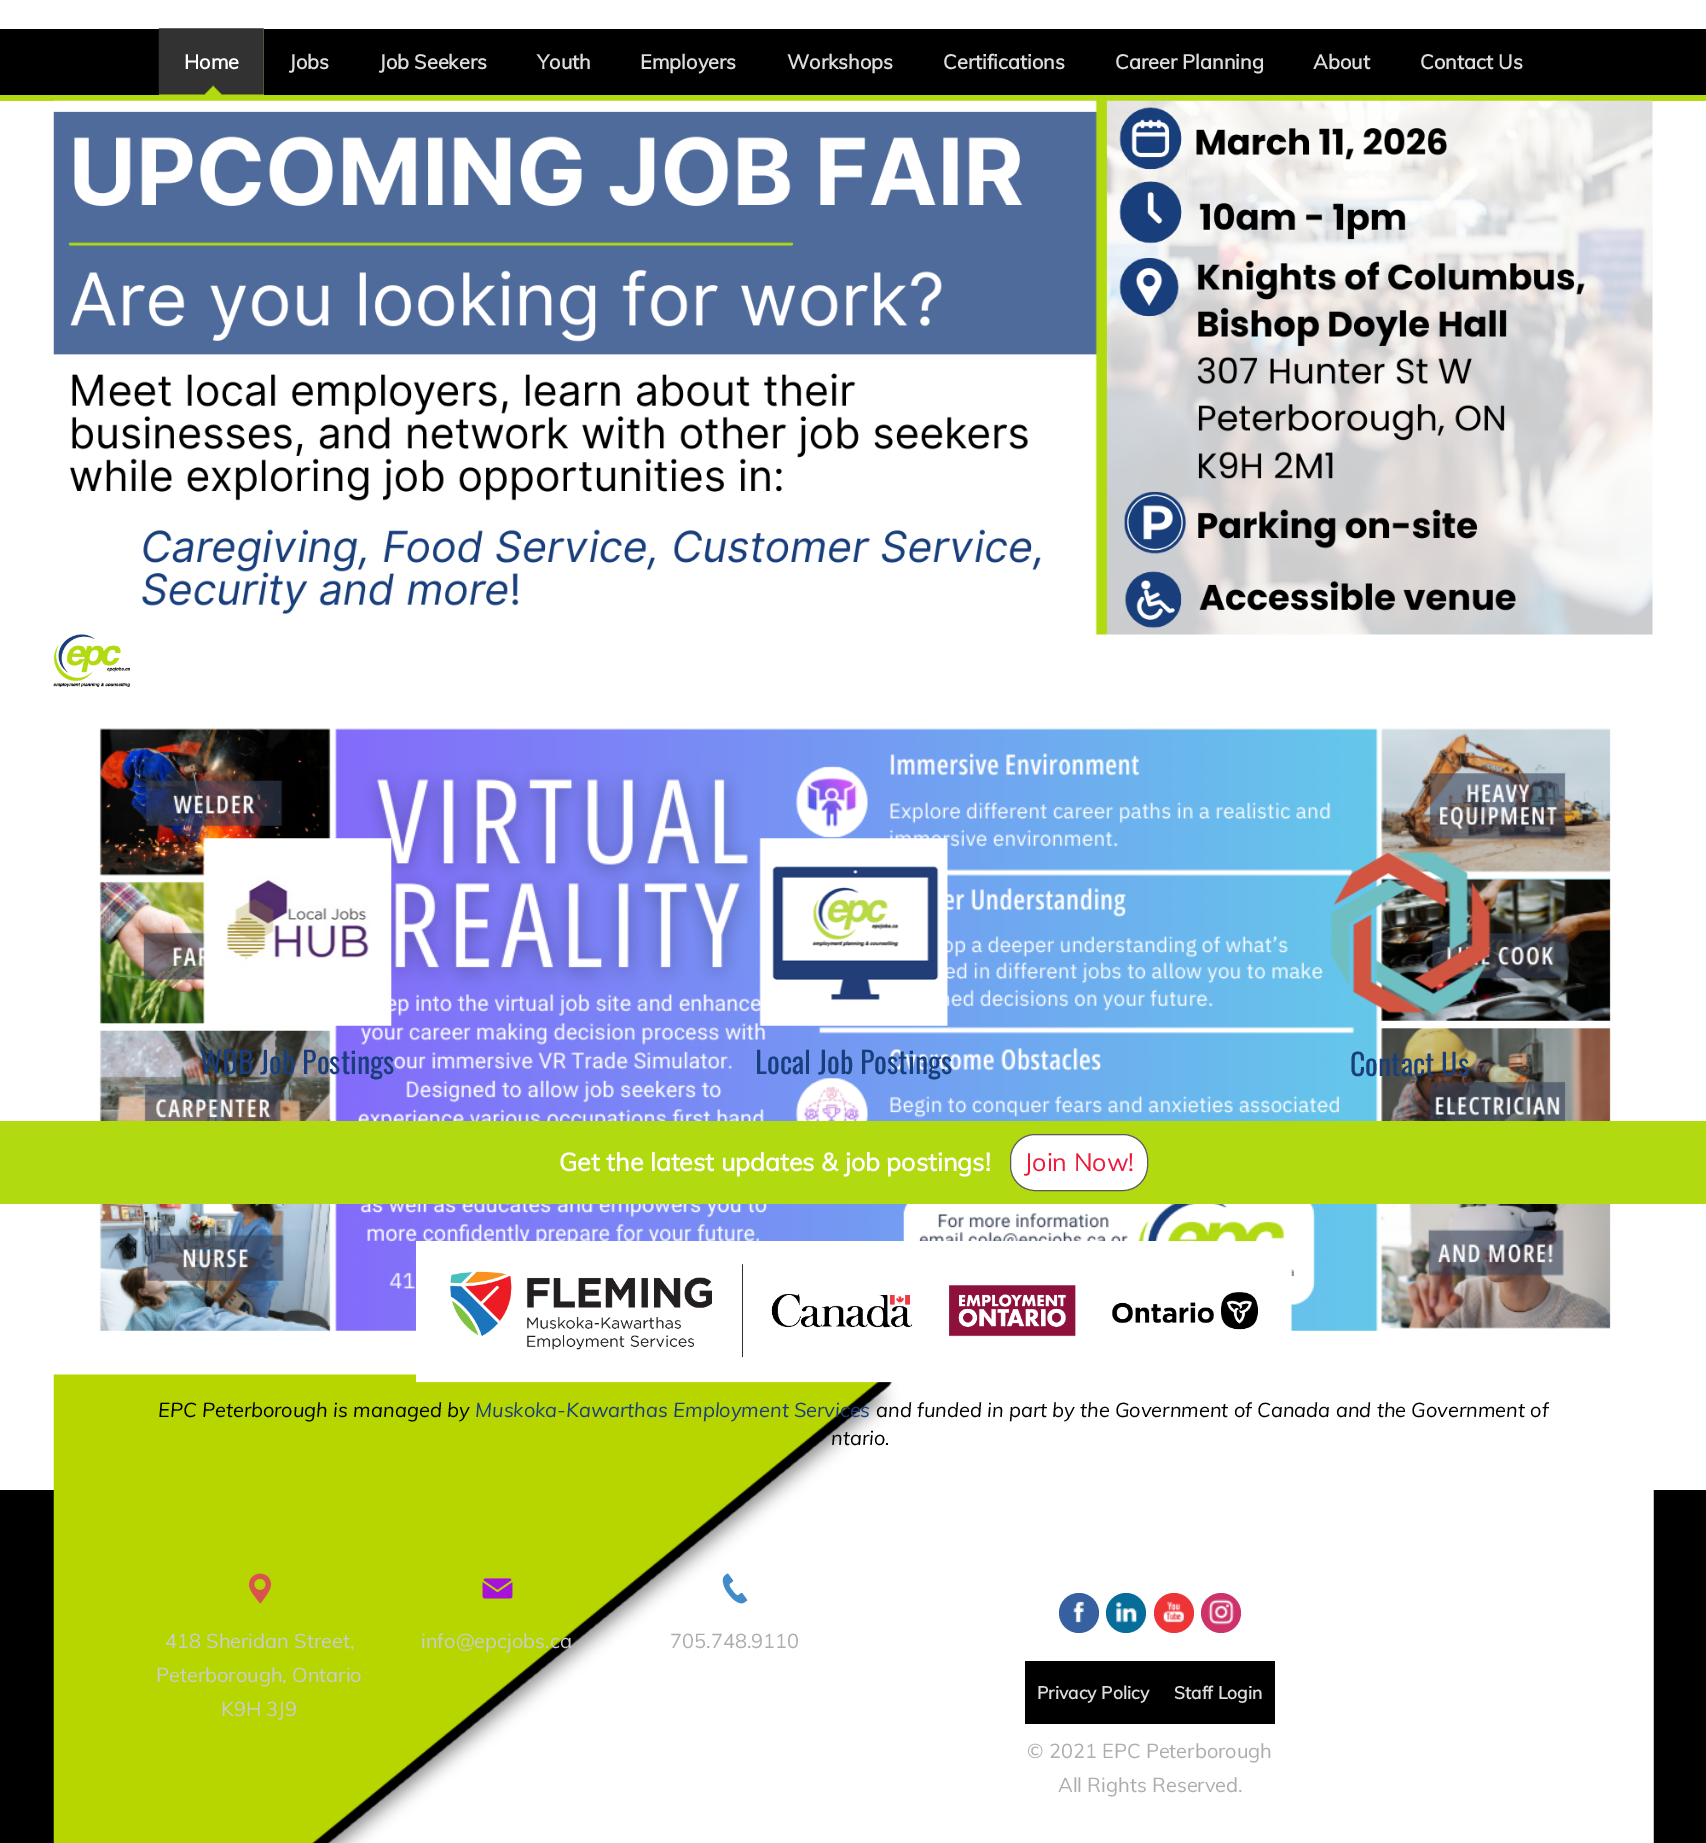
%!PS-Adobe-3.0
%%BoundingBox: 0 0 1706 1843
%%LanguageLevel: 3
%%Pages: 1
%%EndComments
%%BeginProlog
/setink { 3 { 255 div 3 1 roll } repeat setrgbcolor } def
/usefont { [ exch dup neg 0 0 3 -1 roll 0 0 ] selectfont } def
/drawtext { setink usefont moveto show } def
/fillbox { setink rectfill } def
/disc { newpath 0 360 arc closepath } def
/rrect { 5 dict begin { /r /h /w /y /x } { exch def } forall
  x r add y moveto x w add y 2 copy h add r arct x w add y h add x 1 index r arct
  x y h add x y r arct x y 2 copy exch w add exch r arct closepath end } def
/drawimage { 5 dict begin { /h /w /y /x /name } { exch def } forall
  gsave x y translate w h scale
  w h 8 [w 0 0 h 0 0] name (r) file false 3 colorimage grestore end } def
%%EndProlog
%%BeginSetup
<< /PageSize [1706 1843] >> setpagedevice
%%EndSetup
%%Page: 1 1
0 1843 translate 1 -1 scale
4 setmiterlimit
0 0 1706 1843 255 255 255 fillbox
0 29 1706 66 0 0 0 fillbox
159 29 105 66 177 218 17 fillbox
(assets/img1.rgb) 158 28 106 67 drawimage
(Home) 184 69 /Muli-Bold 20 255 255 255 drawtext
(Jobs) 289 69 /Muli-Bold 20 221 221 221 drawtext
(Job Seekers) 379 69 /Muli-Bold 20 221 221 221 drawtext
(Youth) 537 69 /Muli-Bold 20 221 221 221 drawtext
(Employers) 640 69 /Muli-Bold 20 221 221 221 drawtext
(Workshops) 787 69 /Muli-Bold 20 221 221 221 drawtext
(Certifications) 943 69 /Muli-Bold 20 221 221 221 drawtext
(Career Planning) 1115 69 /Muli-Bold 20 221 221 221 drawtext
(About) 1313 69 /Muli-Bold 20 221 221 221 drawtext
(Contact Us) 1420 69 /Muli-Bold 20 221 221 221 drawtext
0 95 1706 6 177 218 17 fillbox
(assets/img2.rgb) 53 100 1600 535 drawimage
(assets/img3.rgb) 53 634 77 53 drawimage
(assets/img4.rgb) 99 728 1512 603 drawimage
0 1490 1706 353 0 0 0 fillbox
(assets/img5.rgb) 53 1374 1601 469 drawimage
(assets/img6.rgb) 203 838 189 188 drawimage
(WDB Job Postings) 200 1074 /Oswald-Regular 30 24 62 124 drawtext
(assets/img7.rgb) 759 838 189 188 drawimage
(Local Job Postings) 755 1074 /Oswald-Regular 30 24 62 124 drawtext
(assets/img8.rgb) 1331 852 160 163 drawimage
(Contact Us) 1350 1076 /Oswald-Regular 30 24 62 124 drawtext
0 1121 1706 83 178 218 16 fillbox
(Get the latest updates & job postings!) 559 1171 /Muli-Bold 25 255 255 255 drawtext
1010.5 1134.5 137 56 24.5 rrect gsave fill grestore
91 91 91 setink
stroke
(Join Now!) 1024 1171 /Muli-Regular 25 237 26 59 drawtext
(assets/img9.rgb) 416 1241 876 142 drawimage
(EPC Peterborough is managed by) 158 1417 /Muli-Italic 20 0 0 0 drawtext
(Muskoka-Kawarthas Employment Services) 475 1417 /Muli-Italic 20 24 62 124 drawtext
(and funded in part by the Government of Canada and the Government of) 876 1417 /Muli-Italic 20 0 0 0 drawtext
(ntario.) 831 1445 /Muli-Italic 20 0 0 0 drawtext
(assets/img10.rgb) 248 1573 24 31 drawimage
(418 Sheridan Street,) 165 1648 /Muli-Regular 20 204 204 204 drawtext
(Peterborough, Ontario) 156 1682 /Muli-Regular 20 204 204 204 drawtext
(K9H 3J9) 221 1716 /Muli-Regular 20 204 204 204 drawtext
(assets/img11.rgb) 482 1578 31 21 drawimage
(info@epcjobs.ca) 421 1648 /Muli-Regular 20 204 204 204 drawtext
(assets/img12.rgb) 722 1573 26 31 drawimage
(705.748.9110) 670 1648 /Muli-Regular 20 173 173 173 drawtext
54 96 159 setink
1079 1613 20 disc fill
(assets/img13.rgb) 1073 1601 11 22 drawimage
6 108 154 setink
1126 1613 20 disc fill
(assets/img14.rgb) 1116 1601 21 22 drawimage
237 52 55 setink
1174 1613 20 disc fill
(assets/img15.rgb) 1163 1601 21 22 drawimage
205 50 107 setink
1221 1613 20 disc fill
(assets/img16.rgb) 1208 1599 26 26 drawimage
1025 1661 250 63 0 0 0 fillbox
(Privacy Policy) 1037 1699 /Muli-Bold 17.5 221 221 221 drawtext
(Staff Login) 1174 1699 /Muli-Bold 17.5 221 221 221 drawtext
(© 2021 EPC Peterborough) 1027 1758 /Muli-Regular 20 173 173 173 drawtext
(All Rights Reserved.) 1058 1792 /Muli-Regular 20 173 173 173 drawtext
showpage
%%EOF
